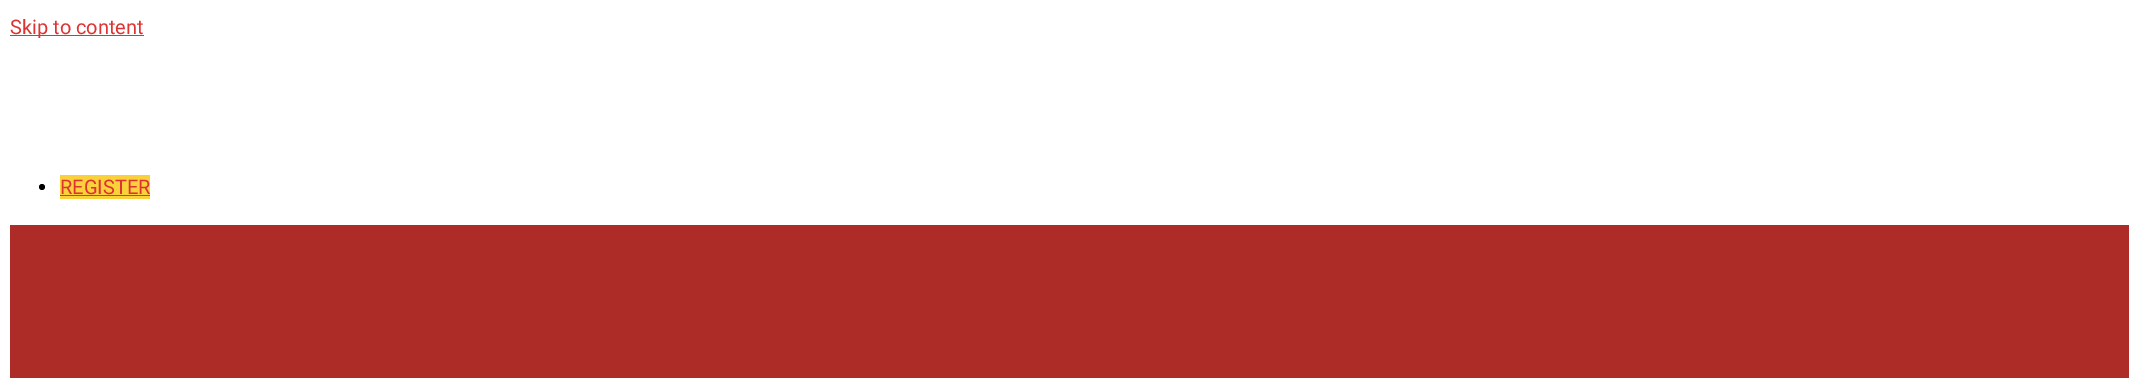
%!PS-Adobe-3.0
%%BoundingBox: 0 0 2138 378
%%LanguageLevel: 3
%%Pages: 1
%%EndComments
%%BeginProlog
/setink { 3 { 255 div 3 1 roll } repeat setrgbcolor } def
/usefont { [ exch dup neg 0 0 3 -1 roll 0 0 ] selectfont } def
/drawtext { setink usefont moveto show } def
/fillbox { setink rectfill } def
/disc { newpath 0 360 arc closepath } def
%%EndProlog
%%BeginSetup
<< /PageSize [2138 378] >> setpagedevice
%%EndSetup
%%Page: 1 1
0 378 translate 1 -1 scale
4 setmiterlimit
0 0 2138 378 255 255 255 fillbox
10 35 134 1 221 51 51 fillbox
(Skip to content) 10 34 /Roboto-Regular 20 221 51 51 drawtext
0 0 0 setink
42 187 3 disc fill
60 175 90 24 250 208 59 fillbox
(REGISTER) 60 194 /Roboto-Regular 20 221 51 51 drawtext
60 195 90 1 221 51 51 fillbox
10 225 2119 153 173 44 39 fillbox
showpage
%%EOF
